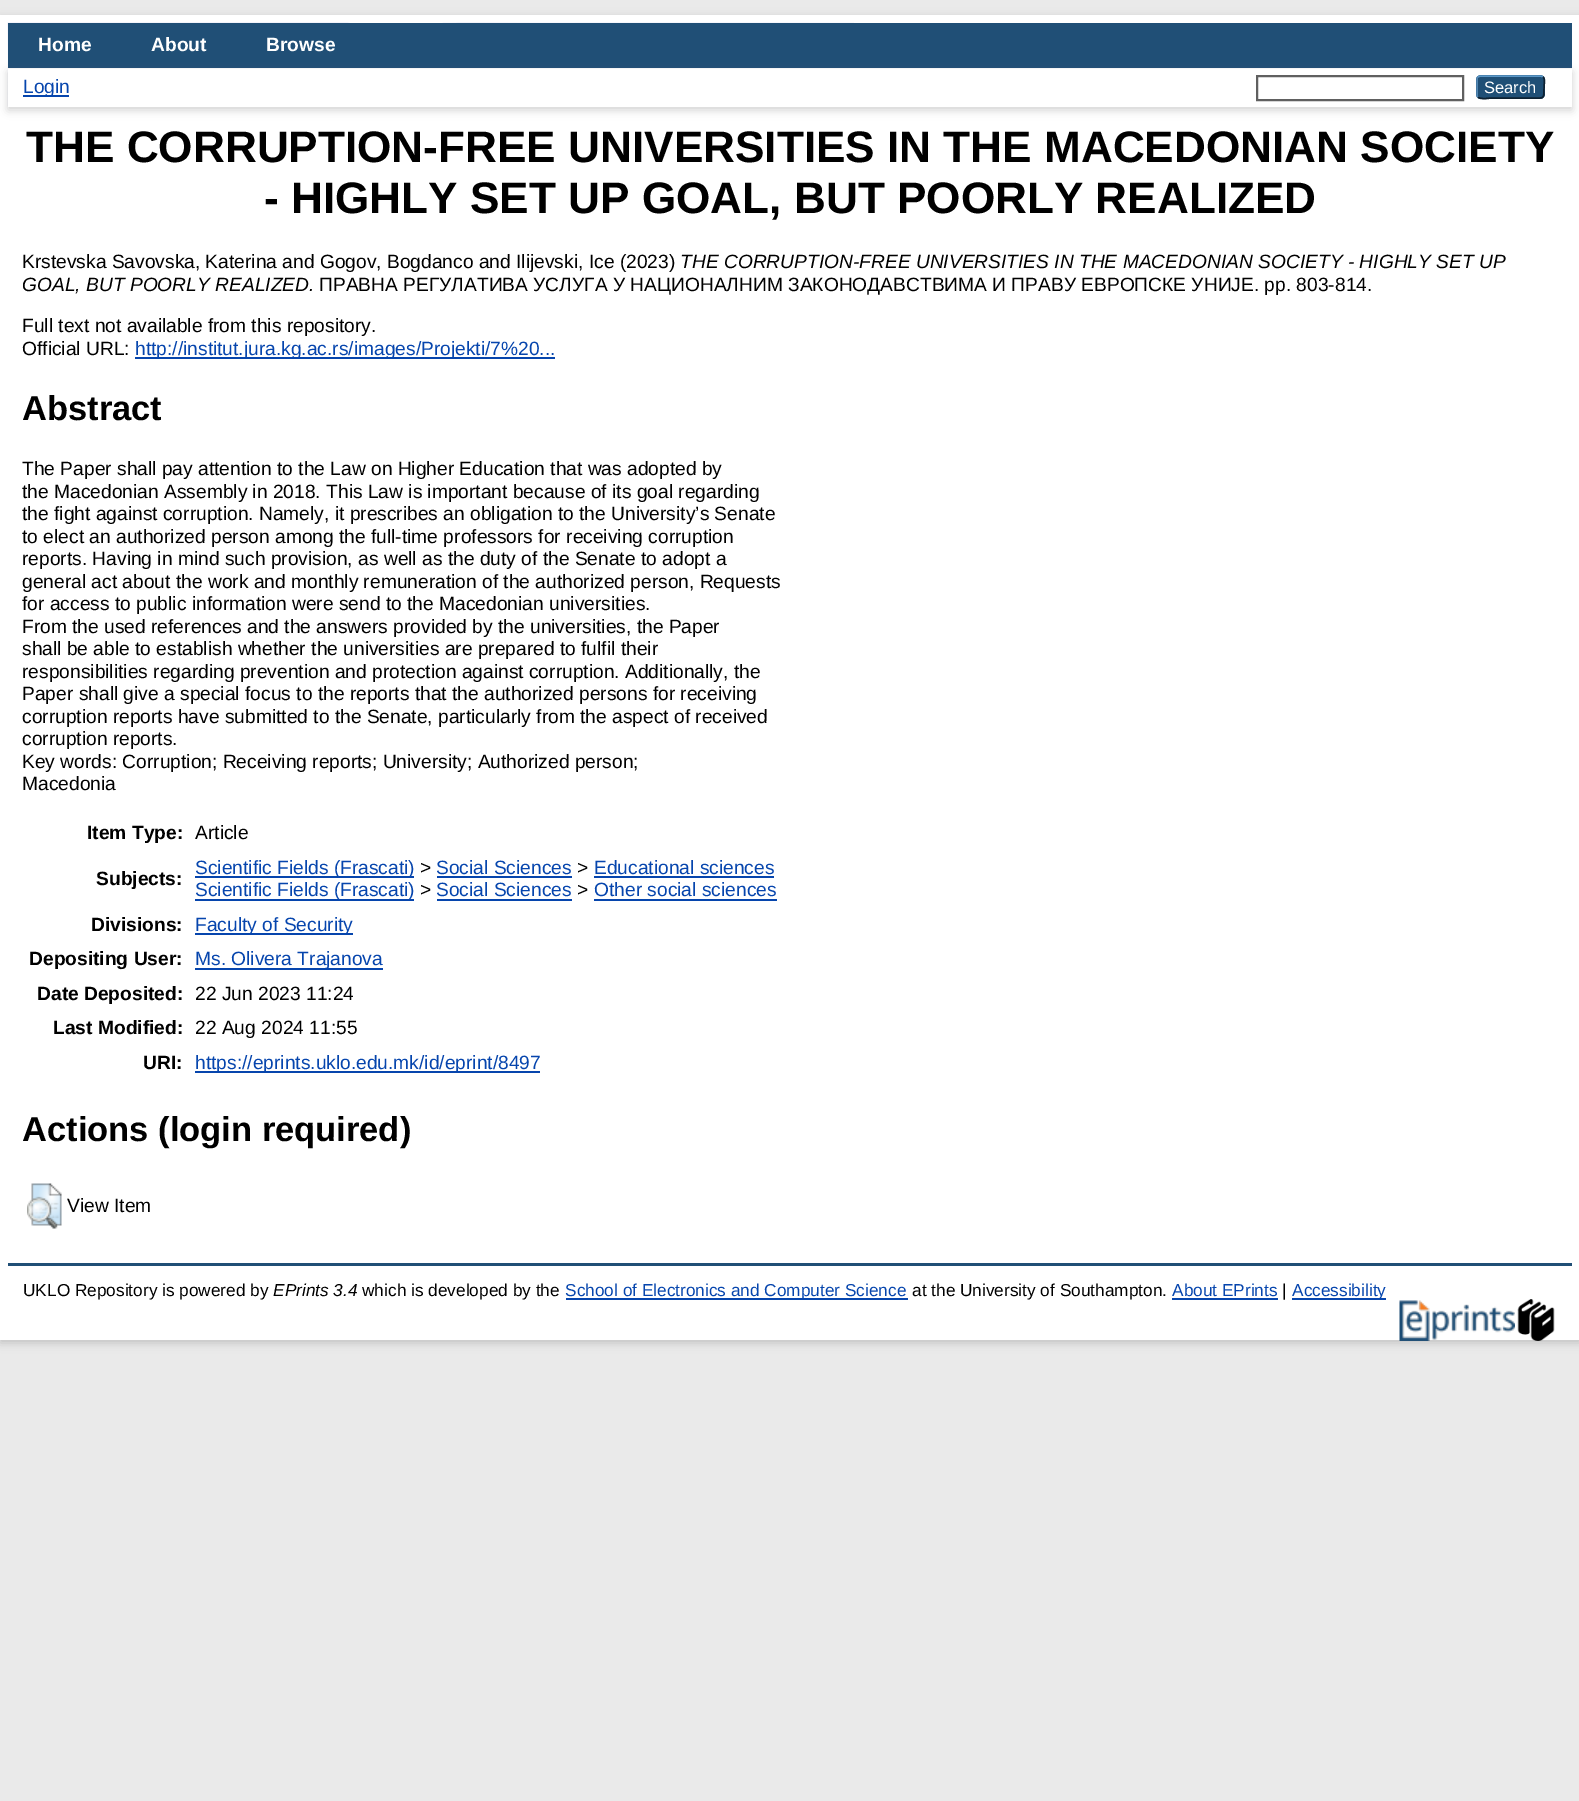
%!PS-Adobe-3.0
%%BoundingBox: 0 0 1579 1801
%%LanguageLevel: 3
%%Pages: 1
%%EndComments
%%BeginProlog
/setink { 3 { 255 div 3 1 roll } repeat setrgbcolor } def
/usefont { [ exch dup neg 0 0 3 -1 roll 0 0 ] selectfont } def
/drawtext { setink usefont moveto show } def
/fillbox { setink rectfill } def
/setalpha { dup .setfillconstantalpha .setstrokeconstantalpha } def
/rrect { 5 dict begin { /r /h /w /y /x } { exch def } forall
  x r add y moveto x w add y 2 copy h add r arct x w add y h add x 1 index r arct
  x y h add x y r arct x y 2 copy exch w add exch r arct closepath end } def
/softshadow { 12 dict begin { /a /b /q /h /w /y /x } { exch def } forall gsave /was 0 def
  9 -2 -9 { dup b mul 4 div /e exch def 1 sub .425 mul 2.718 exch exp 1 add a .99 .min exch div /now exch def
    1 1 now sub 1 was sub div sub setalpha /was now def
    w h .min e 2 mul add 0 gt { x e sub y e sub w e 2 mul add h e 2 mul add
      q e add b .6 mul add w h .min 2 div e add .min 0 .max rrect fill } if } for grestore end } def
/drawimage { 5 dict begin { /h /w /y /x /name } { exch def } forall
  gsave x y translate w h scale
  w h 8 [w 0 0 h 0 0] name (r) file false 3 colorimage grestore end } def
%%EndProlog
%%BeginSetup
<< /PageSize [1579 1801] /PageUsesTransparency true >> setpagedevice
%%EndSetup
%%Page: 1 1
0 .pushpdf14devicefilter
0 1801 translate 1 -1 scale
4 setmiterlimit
0 0 1579 1801 234 234 234 fillbox
100 100 100 setink
0 18 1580 1325 0 4.5 0.3 softshadow
0 15 1579 1325 255 255 255 fillbox
(assets/img1.rgb) 7 22 847 84 drawimage
8 23 1564 45 32 79 118 fillbox
8 68 846 1 255 255 255 fillbox
(Home) 38 51 /LiberationSans-Bold 19.2 255 255 255 drawtext
(About) 151 51 /LiberationSans-Bold 19.2 255 255 255 drawtext
(Browse) 266 51 /LiberationSans-Bold 19.2 255 255 255 drawtext
100 100 100 setink
8 72 1564 38 0 4.5 0.3 softshadow
8 69 1564 38 255 255 255 fillbox
23 95 46 2 6 69 173 fillbox
(Login) 23 93 /LiberationSans-Regular 19.2 6 69 173 drawtext
96 96 96 setink
2 setlinewidth
1257 76 206 24 rectstroke
31 79 118 setink
1476 75 69 24 5 rrect fill
91 151 199 setink
1.5 setlinewidth
1478 77 moveto 1480 76 lineto 1541 76 lineto 1543 77 lineto stroke
13 33 49 setink
1543 77 moveto 1545.5 79 1544 84 1544 87 curveto 1544 100 1544.5 98 1530.5 98 curveto 1490.5 98 lineto 1490 98 1480.5 100 1478 97 curveto stroke
82 135 179 setink
1478 97 moveto 1477 96.5 1477 95.5 1477 94.5 curveto 1477 79.5 lineto 1477 78.5 1477 77.5 1478 77 curveto stroke
(Search) 1484 93 /LiberationSans-Regular 16.5 255 255 255 drawtext
(THE CORRUPTION-FREE UNIVERSITIES IN THE MACEDONIAN SOCIETY) 26 162 /LiberationSans-Bold 44.15 0 0 0 drawtext
(- HIGHLY SET UP GOAL, BUT POORLY REALIZED) 264 213 /LiberationSans-Bold 44.15 0 0 0 drawtext
(Krstevska Savovska, Katerina and Gogov, Bogdanco and Ilijevski, Ice \(2023\)) 22 268 /LiberationSans-Regular 19.2 0 0 0 drawtext
(THE CORRUPTION-FREE UNIVERSITIES IN THE MACEDONIAN SOCIETY - HIGHLY SET UP) 680 268 /LiberationSans-Italic 19.2 0 0 0 drawtext
(GOAL, BUT POORLY REALIZED.) 22 291 /LiberationSans-Italic 19.2 0 0 0 drawtext
(ПРАВНА РЕГУЛАТИВА УСЛУГА У НАЦИОНАЛНИМ ЗАКОНОДАВСТВИМА И ПРАВУ ЕВРОПСКЕ УНИЈЕ. pp. 803-814.) 319 291 /LiberationSans-Regular 19.2 0 0 0 drawtext
(Full text not available from this repository.) 22 332 /LiberationSans-Regular 19.2 0 0 0 drawtext
(Official URL:) 22 355 /LiberationSans-Regular 19.2 0 0 0 drawtext
135 357 420 2 6 69 173 fillbox
(http://institut.jura.kg.ac.rs/images/Projekti/7%20...) 135 355 /LiberationSans-Regular 19.2 6 69 173 drawtext
(Abstract) 22 420 /LiberationSans-Bold 34.5 0 0 0 drawtext
(The Paper shall pay attention to the Law on Higher Education that was adopted by) 22 475 /LiberationSans-Regular 19.2 0 0 0 drawtext
(the Macedonian Assembly in 2018. This Law is important because of its goal regarding) 22 498 /LiberationSans-Regular 19.2 0 0 0 drawtext
(the fight against corruption. Namely, it prescribes an obligation to the University’s Senate) 22 520 /LiberationSans-Regular 19.2 0 0 0 drawtext
(to elect an authorized person among the full-time professors for receiving corruption) 22 543 /LiberationSans-Regular 19.2 0 0 0 drawtext
(reports. Having in mind such provision, as well as the duty of the Senate to adopt a) 22 565 /LiberationSans-Regular 19.2 0 0 0 drawtext
(general act about the work and monthly remuneration of the authorized person, Requests) 22 588 /LiberationSans-Regular 19.2 0 0 0 drawtext
(for access to public information were send to the Macedonian universities.) 22 610 /LiberationSans-Regular 19.2 0 0 0 drawtext
(From the used references and the answers provided by the universities, the Paper) 22 633 /LiberationSans-Regular 19.2 0 0 0 drawtext
(shall be able to establish whether the universities are prepared to fulfil their) 22 655 /LiberationSans-Regular 19.2 0 0 0 drawtext
(responsibilities regarding prevention and protection against corruption. Additionally, the) 22 678 /LiberationSans-Regular 19.2 0 0 0 drawtext
(Paper shall give a special focus to the reports that the authorized persons for receiving) 22 700 /LiberationSans-Regular 19.2 0 0 0 drawtext
(corruption reports have submitted to the Senate, particularly from the aspect of received) 22 723 /LiberationSans-Regular 19.2 0 0 0 drawtext
(corruption reports.) 22 745 /LiberationSans-Regular 19.2 0 0 0 drawtext
(Key words: Corruption; Receiving reports; University; Authorized person;) 22 768 /LiberationSans-Regular 19.2 0 0 0 drawtext
(Macedonia) 22 790 /LiberationSans-Regular 19.2 0 0 0 drawtext
(Item Type:) 87 839 /LiberationSans-Bold 19.2 0 0 0 drawtext
(Article) 195 839 /LiberationSans-Regular 19.2 0 0 0 drawtext
(Subjects:) 96 885 /LiberationSans-Bold 19.2 0 0 0 drawtext
195 876 219 2 6 69 173 fillbox
(Scientific Fields \(Frascati\)) 195 874 /LiberationSans-Regular 19.2 6 69 173 drawtext
(>) 420 874 /LiberationSans-Regular 19.2 0 0 0 drawtext
(Social Sciences) 436 874 /LiberationSans-Regular 19.2 6 69 173 drawtext
437 876 135 2 6 69 173 fillbox
(>) 577 874 /LiberationSans-Regular 19.2 0 0 0 drawtext
(Educational sciences) 594 874 /LiberationSans-Regular 19.2 6 69 173 drawtext
594 876 180 2 6 69 173 fillbox
195 899 219 2 6 69 173 fillbox
(Scientific Fields \(Frascati\)) 195 896 /LiberationSans-Regular 19.2 6 69 173 drawtext
(>) 420 896 /LiberationSans-Regular 19.2 0 0 0 drawtext
(Social Sciences) 436 896 /LiberationSans-Regular 19.2 6 69 173 drawtext
437 899 135 2 6 69 173 fillbox
(>) 577 896 /LiberationSans-Regular 19.2 0 0 0 drawtext
(Other social sciences) 594 896 /LiberationSans-Regular 19.2 6 69 173 drawtext
594 899 183 2 6 69 173 fillbox
(Divisions:) 91 931 /LiberationSans-Bold 19.2 0 0 0 drawtext
195 933 158 2 6 69 173 fillbox
(Faculty of Security) 195 931 /LiberationSans-Regular 19.2 6 69 173 drawtext
(Depositing User:) 29 965 /LiberationSans-Bold 19.2 0 0 0 drawtext
195 968 188 2 6 69 173 fillbox
(Ms. Olivera Trajanova) 195 965 /LiberationSans-Regular 19.2 6 69 173 drawtext
(Date Deposited:) 37 1000 /LiberationSans-Bold 19.2 0 0 0 drawtext
(22 Jun 2023 11:24) 195 1000 /LiberationSans-Regular 19.2 0 0 0 drawtext
(Last Modified:) 53 1034 /LiberationSans-Bold 19.2 0 0 0 drawtext
(22 Aug 2024 11:55) 195 1034 /LiberationSans-Regular 19.2 0 0 0 drawtext
(URI:) 143 1069 /LiberationSans-Bold 19.2 0 0 0 drawtext
195 1071 345 2 6 69 173 fillbox
(https://eprints.uklo.edu.mk/id/eprint/8497) 195 1069 /LiberationSans-Regular 19.2 6 69 173 drawtext
(Actions \(login required\)) 22 1141 /LiberationSans-Bold 34.5 0 0 0 drawtext
(assets/img2.rgb) 27 1183 35 46 drawimage
(View Item) 67 1212 /LiberationSans-Regular 19.2 0 0 0 drawtext
8 1263 1564 3 32 79 118 fillbox
(UKLO Repository is powered by) 23 1296 /LiberationSans-Regular 17.25 0 0 0 drawtext
(EPrints 3.4) 273 1296 /LiberationSans-Italic 17.25 0 0 0 drawtext
(which is developed by the) 362 1296 /LiberationSans-Regular 17.25 0 0 0 drawtext
566 1298 342 2 6 69 173 fillbox
(School of Electronics and Computer Science) 565 1296 /LiberationSans-Regular 17.25 6 69 173 drawtext
(at the University of Southampton.) 912 1296 /LiberationSans-Regular 17.25 0 0 0 drawtext
(About EPrints) 1172 1296 /LiberationSans-Regular 17.25 6 69 173 drawtext
1172 1298 106 2 6 69 173 fillbox
(|) 1282 1296 /LiberationSans-Regular 17.25 0 0 0 drawtext
1292 1298 94 2 6 69 173 fillbox
(Accessibility) 1292 1296 /LiberationSans-Regular 17.25 6 69 173 drawtext
(assets/img3.rgb) 1399 1300 116 41 drawimage
(assets/img4.rgb) 1517 1299 38 42 drawimage
.poppdf14devicefilter showpage
%%EOF
